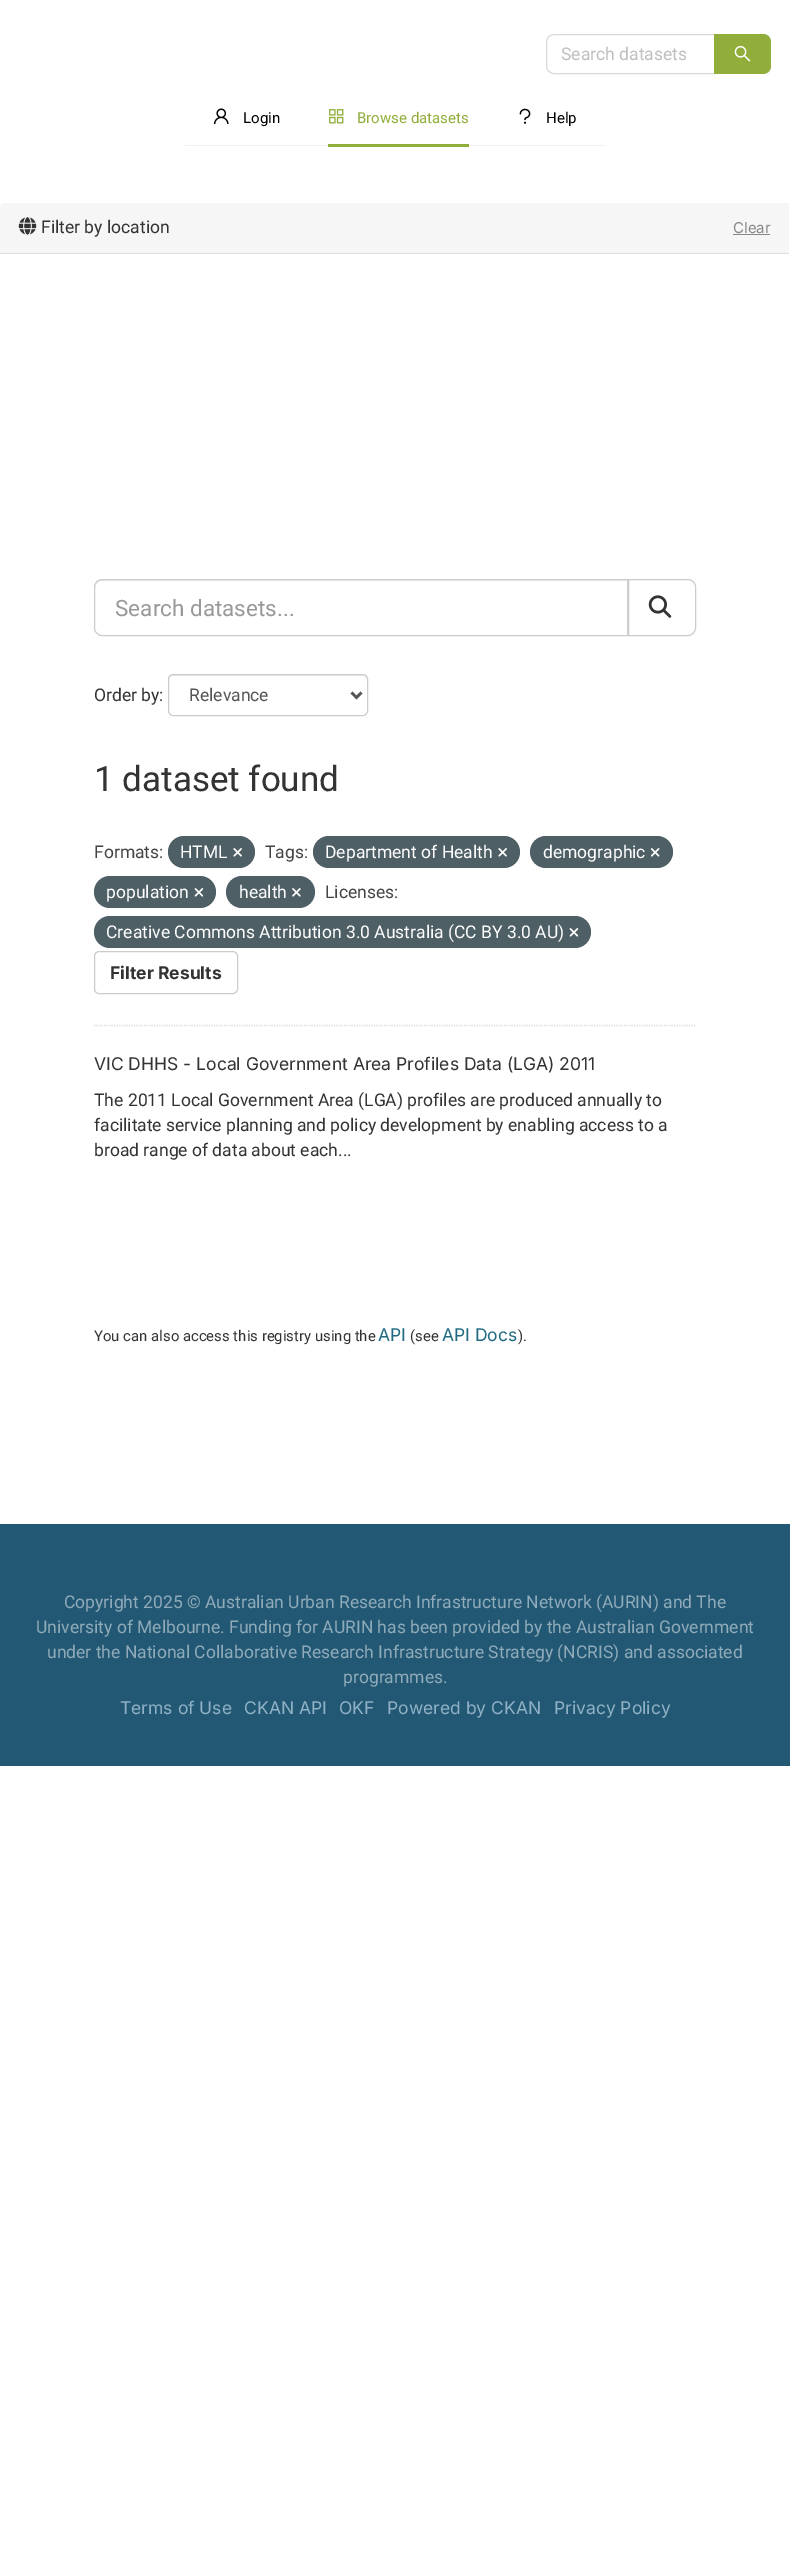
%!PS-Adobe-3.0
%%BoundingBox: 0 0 790 2568
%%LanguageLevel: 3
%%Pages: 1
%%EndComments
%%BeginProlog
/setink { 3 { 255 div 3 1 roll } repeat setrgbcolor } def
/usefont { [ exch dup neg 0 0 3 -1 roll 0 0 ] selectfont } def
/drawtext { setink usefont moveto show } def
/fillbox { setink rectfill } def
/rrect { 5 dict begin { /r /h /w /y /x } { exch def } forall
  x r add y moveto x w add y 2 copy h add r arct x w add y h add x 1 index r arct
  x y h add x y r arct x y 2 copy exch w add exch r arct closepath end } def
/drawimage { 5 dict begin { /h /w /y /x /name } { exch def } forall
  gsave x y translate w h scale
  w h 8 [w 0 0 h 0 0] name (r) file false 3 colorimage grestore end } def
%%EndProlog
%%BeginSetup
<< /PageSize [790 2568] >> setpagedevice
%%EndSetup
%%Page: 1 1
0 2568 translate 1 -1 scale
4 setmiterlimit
0 0 790 2568 255 255 255 fillbox
217 217 217 setink
554 34.5 moveto 714.5 34.5 lineto 714.5 73.5 lineto 554 73.5 lineto 550 73.5 546.5 70 546.5 66 curveto 546.5 42 lineto 546.5 38 550 34.5 554 34.5 curveto closepath stroke
(Search datasets) 561 60 /Roboto-Regular 17.5 191 191 191 drawtext
145 174 59 setink
714 34 moveto 763 34 lineto 767.5 34 771 37.5 771 42 curveto 771 66 lineto 771 70.5 767.5 74 763 74 curveto 714 74 lineto closepath fill
(assets/img1.rgb) 734 45 17 17 drawimage
185 145 420 1 240 240 240 fillbox
(assets/img2.rgb) 213 108 16 16 drawimage
(Login) 243 123 /Roboto-Regular 15 0 0 0 drawtext
(assets/img3.rgb) 329 109 15 15 drawimage
(Browse datasets) 357 123 /Roboto-Regular 15 145 174 59 drawtext
328 144 141 3 145 174 59 fillbox
(assets/img4.rgb) 519 108 12 16 drawimage
(Help) 546 123 /Roboto-Regular 15 0 0 0 drawtext
246 246 246 setink
4 203 moveto 789 203 lineto 789 254 lineto 0 254 lineto 0 207 lineto 0 205 2 203 4 203 curveto closepath fill
0 253 789 1 221 221 221 fillbox
(assets/img5.rgb) 18 217 19 18 drawimage
(Filter by location) 41 233 /Roboto-Regular 17.5 51 51 51 drawtext
(Clear) 733 233 /Inter-Regular 15 136 136 136 drawtext
733 234 37 1 136 136 136 fillbox
221 221 221 setink
1.2 setlinewidth
[1.25 1.25] 0 setdash
94 1025.5 moveto 696 1025.5 lineto stroke
236 236 236 setink
101 581 moveto 626 581 lineto 626 580 lineto 101 580 lineto 96 580 95 584 95 588 curveto 95 584 98 581 101 581 curveto closepath fill
204 204 204 setink
1 setlinewidth
[] 0 setdash
102 579.5 moveto 627.5 579.5 lineto 627.5 635.5 lineto 102 635.5 lineto 98 635.5 94.5 632 94.5 628 curveto 94.5 587 lineto 94.5 583 98 579.5 102 579.5 curveto closepath stroke
(Search datasets...) 115 616 /Roboto-Regular 22.5 153 153 153 drawtext
204 204 204 setink
628.5 579.5 moveto 688 579.5 lineto 692 579.5 695.5 583 695.5 587 curveto 695.5 628 lineto 695.5 632 692 635.5 688 635.5 curveto 628.5 635.5 lineto closepath stroke
(assets/img6.rgb) 648 595 24 23 drawimage
(Order by:) 94 701 /Roboto-Regular 17.5 51 51 51 drawtext
236 236 236 setink
172 676 moveto 362 676 lineto 365 676 366 678 366 680 curveto 366 679 lineto 366 677 364 675 362 675 curveto 173 675 lineto 171 675 169 677 169 679 curveto 169 680 lineto 169 678 170 676 172 676 curveto closepath fill
204 204 204 setink
168.5 674.5 199 41 4.5 rrect stroke
85 85 85 setink
2.5 setlinewidth
351.5 692.5 moveto 356.5 697.5 lineto 361.5 692.5 lineto stroke
(Relevance) 189 701 /Roboto-Regular 17.5 85 85 85 drawtext
(1 dataset found) 94 791 /Roboto-Regular 35 51 51 51 drawtext
(Formats:) 94 858 /Roboto-Regular 17.5 68 68 68 drawtext
78 95 101 setink
168 836 87 32 16 rrect fill
(HTML) 180 858 /Roboto-Regular 17.5 255 255 255 drawtext
(assets/img7.rgb) 233 848 9 9 drawimage
(Tags:) 265 858 /Roboto-Regular 17.5 68 68 68 drawtext
78 95 101 setink
313 836 207 32 16 rrect fill
(Department of Health) 325 858 /Roboto-Regular 17.5 255 255 255 drawtext
(assets/img7.rgb) 498 848 9 9 drawimage
78 95 101 setink
530 836 143 32 16 rrect fill
(demographic) 543 858 /Roboto-Regular 17.5 255 255 255 drawtext
(assets/img8.rgb) 650 848 10 9 drawimage
78 95 101 setink
94 876 122 32 16 rrect fill
(population) 106 898 /Roboto-Regular 17.5 255 255 255 drawtext
(assets/img9.rgb) 194 888 10 9 drawimage
78 95 101 setink
226 876 89 32 16 rrect fill
(health) 239 898 /Roboto-Regular 17.5 255 255 255 drawtext
(assets/img10.rgb) 292 888 9 9 drawimage
(Licenses:) 325 898 /Roboto-Regular 17.5 68 68 68 drawtext
78 95 101 setink
94 916 497 32 16 rrect fill
(Creative Commons Attribution 3.0 Australia \(CC BY 3.0 AU\)) 106 938 /Roboto-Regular 17.5 255 255 255 drawtext
(assets/img9.rgb) 569 928 10 9 drawimage
204 204 204 setink
1 setlinewidth
94.5 951.5 143 42 4.5 rrect stroke
(Filter Results) 110 979 /Inter-Bold 17.5 51 51 51 drawtext
(VIC DHHS - Local Government Area Profiles Data \(LGA\) 2011) 94 1070 /Inter-Regular 17.5 51 51 51 drawtext
(The 2011 Local Government Area \(LGA\) profiles are produced annually to) 94 1106 /Roboto-Regular 17.5 51 51 51 drawtext
(facilitate service planning and policy development by enabling access to a) 94 1131 /Roboto-Regular 17.5 51 51 51 drawtext
(broad range of data about each...) 94 1156 /Roboto-Regular 17.5 51 51 51 drawtext
(You can also access this registry using the) 94 1341 /Roboto-Regular 14.9 51 51 51 drawtext
(API) 378 1341 /Inter-Regular 17.5 32 107 130 drawtext
(\(see) 410 1341 /Roboto-Regular 14.9 51 51 51 drawtext
(API Docs) 442 1341 /Inter-Regular 17.5 32 107 130 drawtext
(\).) 518 1341 /Roboto-Regular 14.9 51 51 51 drawtext
0 1524 790 242 35 88 117 fillbox
(Copyright 2025 © Australian Urban Research Infrastructure Network \(AURIN\) and The) 64 1608 /Roboto-Regular 17.5 143 171 185 drawtext
(University of Melbourne. Funding for AURIN has been provided by the Australian Government) 36 1633 /Roboto-Regular 17.5 143 171 185 drawtext
(under the National Collaborative Research Infrastructure Strategy \(NCRIS\) and associated) 47 1658 /Roboto-Regular 17.5 143 171 185 drawtext
(programmes.) 343 1683 /Roboto-Regular 17.5 143 171 185 drawtext
(Terms of Use) 120 1714 /Inter-Regular 17.5 143 177 196 drawtext
(CKAN API) 244 1714 /Inter-Regular 17.5 143 177 196 drawtext
(OKF) 339 1714 /Inter-Regular 17.5 143 177 196 drawtext
(Powered by CKAN) 387 1714 /Inter-Regular 17.5 143 177 196 drawtext
(Privacy Policy) 554 1714 /Inter-Regular 17.5 143 177 196 drawtext
showpage
%%EOF
